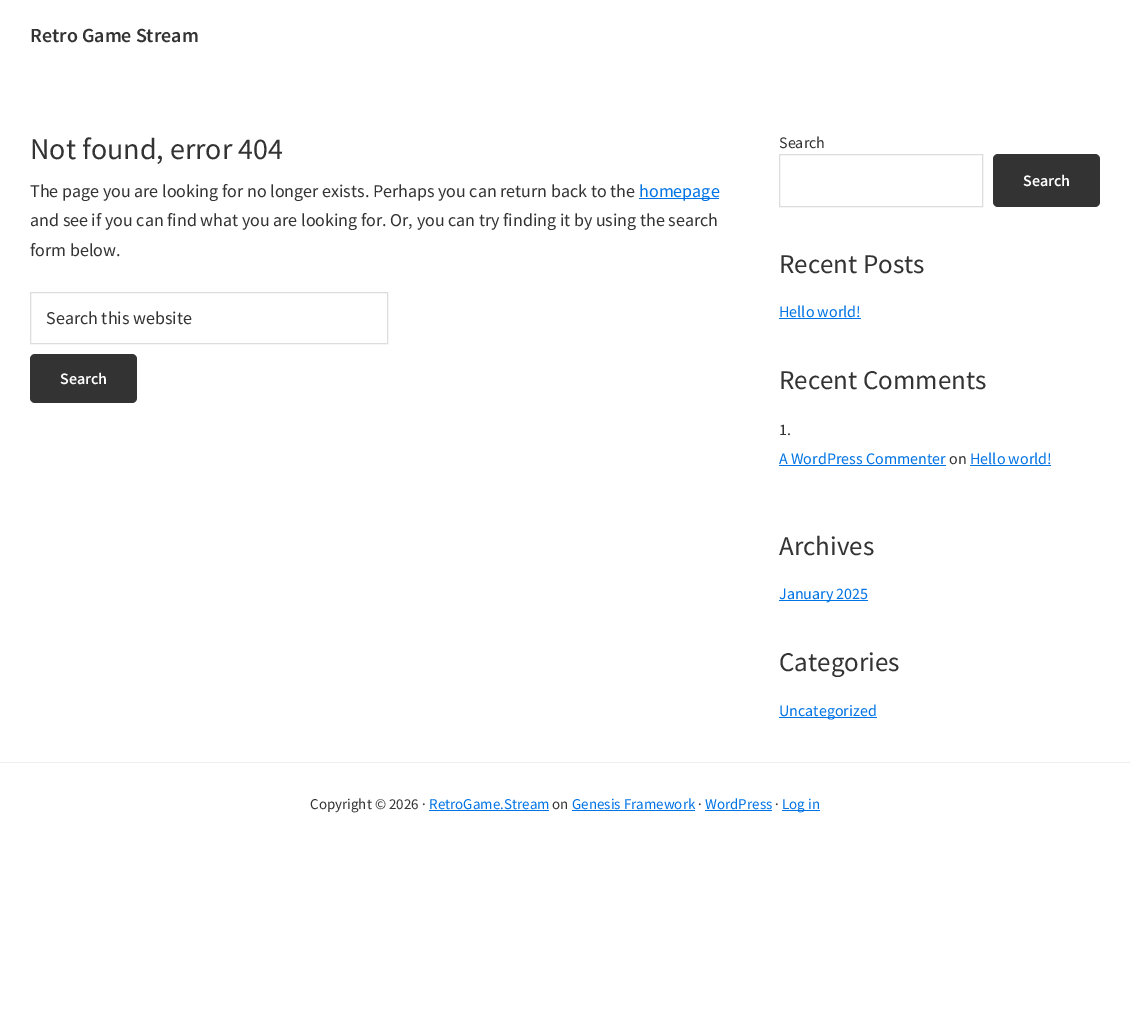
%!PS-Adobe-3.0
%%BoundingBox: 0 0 1130 1011
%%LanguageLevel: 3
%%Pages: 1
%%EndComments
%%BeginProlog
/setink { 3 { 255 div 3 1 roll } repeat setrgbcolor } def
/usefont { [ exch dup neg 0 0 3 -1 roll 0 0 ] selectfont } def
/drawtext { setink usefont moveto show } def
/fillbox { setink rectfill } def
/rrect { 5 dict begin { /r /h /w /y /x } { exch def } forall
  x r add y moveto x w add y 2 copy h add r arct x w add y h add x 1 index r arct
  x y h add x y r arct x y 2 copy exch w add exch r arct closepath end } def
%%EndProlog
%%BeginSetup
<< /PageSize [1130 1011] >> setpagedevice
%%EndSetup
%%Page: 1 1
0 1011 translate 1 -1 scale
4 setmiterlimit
0 0 1130 1011 255 255 255 fillbox
(Retro Game Stream) 30 42 /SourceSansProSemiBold-SemiBold 20 51 51 51 drawtext
(Not found, error 404) 30 159 /SourceSansPro-Regular 30 51 51 51 drawtext
(The page you are looking for no longer exists. Perhaps you can return back to the) 30 197 /SourceSansPro-Regular 18 51 51 51 drawtext
639 198 80 1 0 115 229 fillbox
(homepage) 639 197 /SourceSansPro-Regular 18 0 115 229 drawtext
(and see if you can find what you are looking for. Or, you can try finding it by using the search) 30 226 /SourceSansPro-Regular 18 51 51 51 drawtext
(form below.) 30 256 /SourceSansPro-Regular 18 51 51 51 drawtext
221 221 221 setink
30.5 292.5 357 51 rectstroke
(Search this website) 46 324 /SourceSansPro-Regular 18 51 51 51 drawtext
30 354 107 49 5 rrect fill
(Search) 60 384 /SourceSansProSemiBold-SemiBold 16 255 255 255 drawtext
(Search) 779 148 /SourceSansPro-Regular 16 51 51 51 drawtext
221 221 221 setink
779.5 154.5 203 52 rectstroke
51 51 51 setink
993 154 107 53 5 rrect fill
(Search) 1023 186 /SourceSansProSemiBold-SemiBold 16 255 255 255 drawtext
(Recent Posts) 779 273 /SourceSansPro-Regular 27 51 51 51 drawtext
(Hello world!) 779 317 /SourceSansPro-Regular 16 0 115 229 drawtext
779 318 82 1 0 115 229 fillbox
(Recent Comments) 779 389 /SourceSansPro-Regular 27 51 51 51 drawtext
(1.) 779 435 /SourceSansPro-Regular 16 51 51 51 drawtext
(A WordPress Commenter) 779 464 /SourceSansPro-Regular 16 0 115 229 drawtext
779 465 167 1 0 115 229 fillbox
(on) 949 464 /SourceSansPro-Regular 16 51 51 51 drawtext
(Hello world!) 970 464 /SourceSansPro-Regular 16 0 115 229 drawtext
970 465 81 1 0 115 229 fillbox
(Archives) 779 555 /SourceSansPro-Regular 27 51 51 51 drawtext
779 600 89 1 0 115 229 fillbox
(January 2025) 779 599 /SourceSansPro-Regular 16 0 115 229 drawtext
(Categories) 779 671 /SourceSansPro-Regular 27 51 51 51 drawtext
779 717 98 1 0 115 229 fillbox
(Uncategorized) 779 716 /SourceSansPro-Regular 16 0 115 229 drawtext
0 762 1130 1 238 238 238 fillbox
(Copyright © 2026 ·) 310 809 /SourceSansPro-Regular 15 51 51 51 drawtext
(RetroGame.Stream) 429 809 /SourceSansPro-Regular 15 0 115 229 drawtext
429 810 120 1 0 115 229 fillbox
(on) 552 809 /SourceSansPro-Regular 15 51 51 51 drawtext
(Genesis Framework) 572 809 /SourceSansPro-Regular 15 0 115 229 drawtext
572 810 123 1 0 115 229 fillbox
(·) 698 809 /SourceSansPro-Regular 15 51 51 51 drawtext
(WordPress) 705 809 /SourceSansPro-Regular 15 0 115 229 drawtext
705 810 67 1 0 115 229 fillbox
(·) 775 809 /SourceSansPro-Regular 15 51 51 51 drawtext
782 810 38 1 0 115 229 fillbox
(Log in) 782 809 /SourceSansPro-Regular 15 0 115 229 drawtext
showpage
%%EOF
